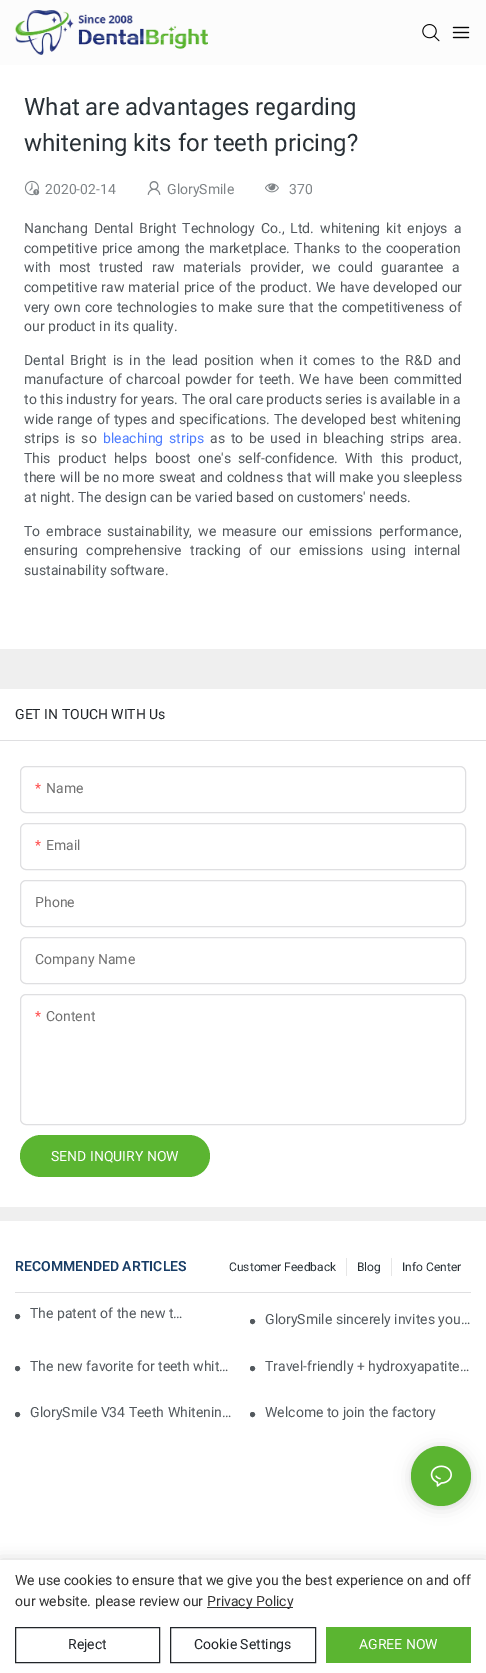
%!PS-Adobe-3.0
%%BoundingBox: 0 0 486 1673
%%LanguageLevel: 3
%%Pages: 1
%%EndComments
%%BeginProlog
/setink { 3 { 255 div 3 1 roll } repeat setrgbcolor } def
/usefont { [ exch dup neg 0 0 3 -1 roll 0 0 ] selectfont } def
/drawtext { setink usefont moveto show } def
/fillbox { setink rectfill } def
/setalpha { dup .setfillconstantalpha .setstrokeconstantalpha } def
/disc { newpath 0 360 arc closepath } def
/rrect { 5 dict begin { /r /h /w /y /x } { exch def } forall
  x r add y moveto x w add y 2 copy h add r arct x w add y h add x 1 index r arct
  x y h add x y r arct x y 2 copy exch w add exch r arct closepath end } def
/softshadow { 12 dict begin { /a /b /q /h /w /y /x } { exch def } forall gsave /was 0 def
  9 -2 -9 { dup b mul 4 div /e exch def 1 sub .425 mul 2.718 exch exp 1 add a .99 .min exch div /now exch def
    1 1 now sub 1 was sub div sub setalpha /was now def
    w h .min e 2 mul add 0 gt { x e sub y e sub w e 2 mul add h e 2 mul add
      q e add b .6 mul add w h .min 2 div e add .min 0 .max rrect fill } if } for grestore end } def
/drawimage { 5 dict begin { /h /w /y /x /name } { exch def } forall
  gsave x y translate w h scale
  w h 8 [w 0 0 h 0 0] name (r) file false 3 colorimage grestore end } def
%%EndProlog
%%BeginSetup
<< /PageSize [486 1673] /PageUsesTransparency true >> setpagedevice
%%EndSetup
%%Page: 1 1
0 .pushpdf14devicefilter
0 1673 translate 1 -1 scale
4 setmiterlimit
0 0 486 1673 255 255 255 fillbox
0 0 486 65 252 252 252 fillbox
(assets/img1.rgb) 15 10 193 45 drawimage
(assets/img2.rgb) 422 24 18 18 drawimage
(assets/img3.rgb) 452 26 18 13 drawimage
0 649 486 572 239 239 239 fillbox
(What are advantages regarding) 24 115 /Roboto-Regular 24 40 48 54 drawtext
(whitening kits for teeth pricing?) 24 151 /Roboto-Regular 24 40 48 54 drawtext
(assets/img4.rgb) 24 180 16 16 drawimage
(2020-02-14) 45 194 /Roboto-Regular 14 126 131 134 drawtext
(assets/img5.rgb) 147 181 14 14 drawimage
(GlorySmile) 167 194 /Roboto-Regular 14 126 131 134 drawtext
(assets/img6.rgb) 265 183 14 10 drawimage
(370) 289 194 /Roboto-Regular 14 126 131 134 drawtext
83 89 94 setink
24 233 moveto 2.5 0 32 (Nanchang Dental Bright Technology Co., Ltd. whitening kit enjoys a) widthshow
24 253 moveto 1 0 32 (competitive price among the marketplace. Thanks to the cooperation) widthshow
24 272 moveto 5 0 32 (with most trusted raw materials provider, we could guarantee a) widthshow
24 292 moveto 0.75 0 32 (competitive raw material price of the product. We have developed our) widthshow
24 312 moveto 1 0 32 (very own core technologies to make sure that the competitiveness of) widthshow
(our product in its quality.) 24 331 /Roboto-Regular 14 83 89 94 drawtext
24 365 moveto 2.4 0 32 (Dental Bright is in the lead position when it comes to the R&D and) widthshow
24 384 moveto 1.5 0 32 (manufacture of charcoal powder for teeth. We have been committed) widthshow
(to this industry for years. The oral care products series is available in a) 24 404 /Roboto-Regular 14 83 89 94 drawtext
24 424 moveto 0.6 0 32 (wide range of types and specifications. The developed best whitening) widthshow
24 443 moveto 2.4 0 32 (strips is so) widthshow
77 124 254 setink
103 443 moveto 2.4 0 32 (bleaching strips) widthshow
83 89 94 setink
210 443 moveto 2.4 0 32 (as to be used in bleaching strips area.) widthshow
24 463 moveto 4 0 32 (This product helps boost one's self-confidence.) widthshow
345 463 moveto 4 0 32 (With this product,) widthshow
24 482 moveto 0.25 0 32 (there will be no more sweat and coldness that will make you sleepless) widthshow
(at night. The design can be varied based on customers' needs.) 24 502 /Roboto-Regular 14 83 89 94 drawtext
24 536 moveto 2.5 0 32 (To embrace sustainability, we measure our emissions performance,) widthshow
24 555 moveto 5 0 32 (ensuring comprehensive tracking of our emissions using internal) widthshow
(sustainability software.) 24 575 /Roboto-Regular 14 83 89 94 drawtext
0 689 486 518 255 255 255 fillbox
0 740 486 1 223 223 225 fillbox
(GET IN TOUCH WITH Us) 15 719 /Roboto-Regular 14 33 37 41 drawtext
223 223 225 setink
20.5 766.5 445 46 5.5 rrect stroke
(*) 35 793 /Roboto-Regular 14 255 77 77 drawtext
(Name) 46 793 /Roboto-Regular 14 112 112 112 drawtext
223 223 225 setink
20.5 823.5 445 46 5.5 rrect stroke
(*) 35 850 /Roboto-Regular 14 255 77 77 drawtext
(Email) 46 850 /Roboto-Regular 14 112 112 112 drawtext
223 223 225 setink
20.5 880.5 445 46 5.5 rrect stroke
(Phone) 35 907 /Roboto-Regular 14 112 112 112 drawtext
223 223 225 setink
20.5 937.5 445 46 5.5 rrect stroke
(Company Name) 35 964 /Roboto-Regular 14 112 112 112 drawtext
223 223 225 setink
20.5 994.5 445 130 5.5 rrect stroke
(*) 35 1021 /Roboto-Regular 14 255 77 77 drawtext
(Content) 46 1021 /Roboto-Regular 14 112 112 112 drawtext
91 181 49 setink
20 1135 190 42 21 rrect fill
(SEND INQUIRY NOW) 51 1161 /Roboto-Regular 14 255 255 255 drawtext
15 1292 456 1 223 223 225 fillbox
(RECOMMENDED ARTICLES) 15 1271 /Roboto-SemiBold 14 24 61 102 drawtext
(Customer Feedback) 229 1271 /Roboto-Regular 12 40 48 54 drawtext
346 1258 1 18 230 230 230 fillbox
(Blog) 357 1271 /Roboto-Regular 12 40 48 54 drawtext
391 1258 1 18 230 230 230 fillbox
(Info Center) 402 1271 /Roboto-Regular 12 40 48 54 drawtext
92 92 92 setink
17.5 1316.5 1.5 disc gsave fill grestore
83 89 94 setink
2 setlinewidth
stroke
(The patent of the new t…) 30 1318 /Roboto-Regular 14 83 89 94 drawtext
92 92 92 setink
252.5 1321.5 1.5 disc gsave fill grestore
83 89 94 setink
stroke
(GlorySmile sincerely invites you…) 265 1324 /Roboto-Regular 14 83 89 94 drawtext
92 92 92 setink
17.5 1368.5 1.5 disc gsave fill grestore
83 89 94 setink
stroke
(The new favorite for teeth whit…) 30 1371 /Roboto-Regular 14 83 89 94 drawtext
92 92 92 setink
252.5 1368.5 1.5 disc gsave fill grestore
83 89 94 setink
stroke
(Travel-friendly + hydroxyapatite…) 265 1371 /Roboto-Regular 14 83 89 94 drawtext
92 92 92 setink
17.5 1414.5 1.5 disc gsave fill grestore
83 89 94 setink
stroke
(GlorySmile V34 Teeth Whitenin…) 30 1417 /Roboto-Regular 14 83 89 94 drawtext
92 92 92 setink
252.5 1414.5 1.5 disc gsave fill grestore
83 89 94 setink
stroke
(Welcome to join the factory) 265 1417 /Roboto-Regular 14 83 89 94 drawtext
0 0 0 setink
411 1448 60 60 30 8 0.12 softshadow
411 1447 60 60 30 2 0.06 softshadow
91 181 49 setink
441 1476 30 disc fill
(assets/img7.rgb) 430 1465 22 22 drawimage
0 0 0 setink
0 1560 486 113 0 7.5 0.15 softshadow
0 1560 486 113 255 255 255 fillbox
(We use cookies to ensure that we give you the best experience on and off) 15 1585 /Roboto-Regular 14 51 51 51 drawtext
(our website. please review our) 15 1606 /Roboto-Regular 14 51 51 51 drawtext
207 1607 86 1 51 51 51 fillbox
(Privacy Policy) 207 1606 /Roboto-Regular 14 51 51 51 drawtext
33 37 41 setink
1 setlinewidth
15.5 1627.5 144 35 rectstroke
(Reject) 68 1649 /Roboto-Regular 14 33 37 41 drawtext
170.5 1627.5 145 35 rectstroke
(Cookie Settings) 194 1649 /Roboto-Regular 14 33 37 41 drawtext
326 1627 145 36 91 181 49 fillbox
(AGREE NOW) 359 1649 /Roboto-Regular 14 255 255 255 drawtext
.poppdf14devicefilter showpage
%%EOF
